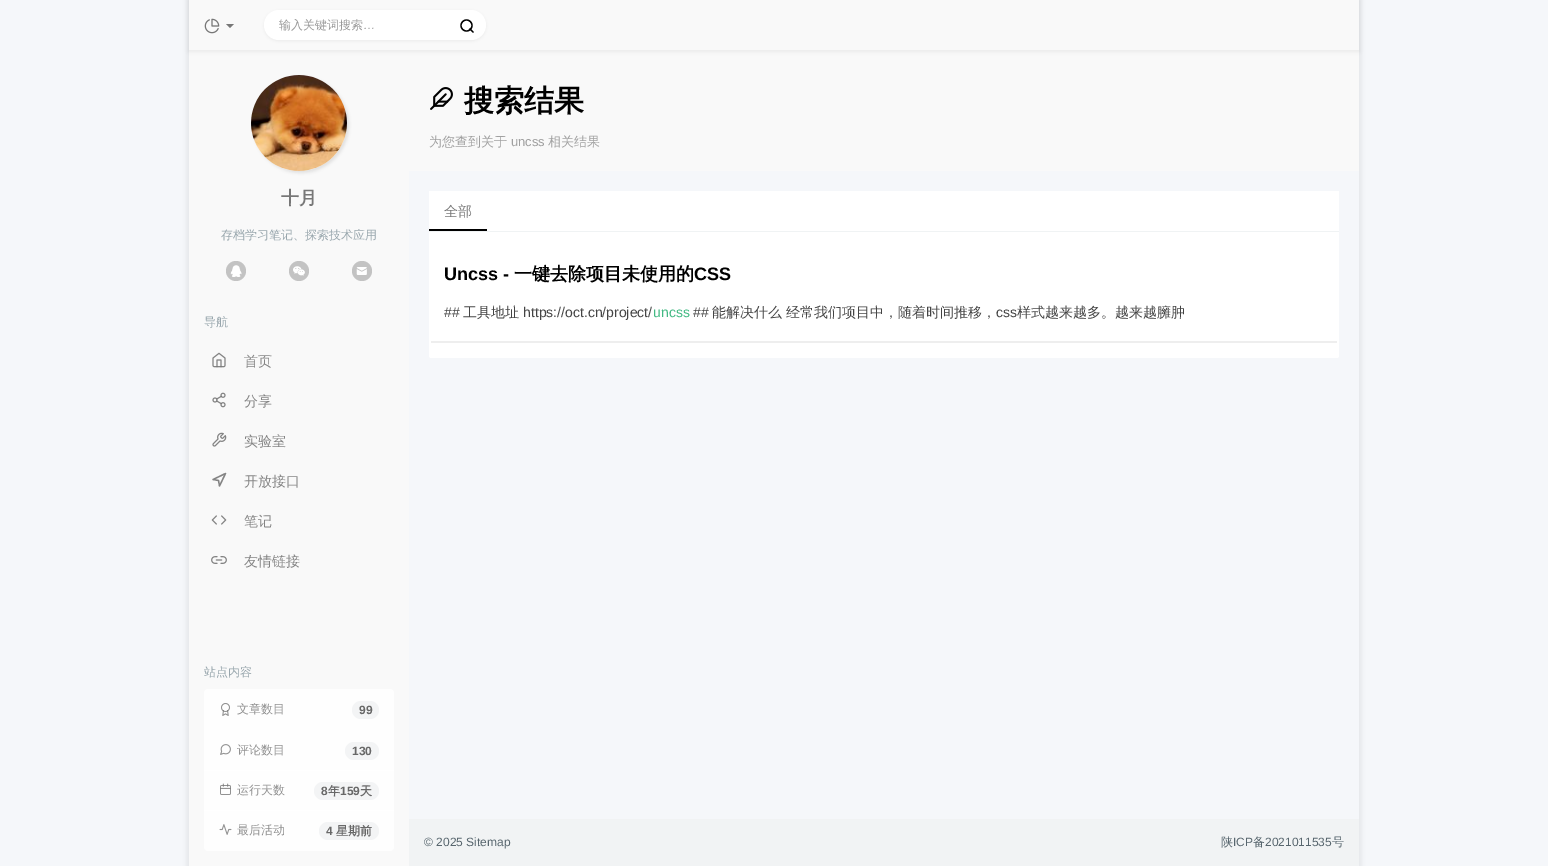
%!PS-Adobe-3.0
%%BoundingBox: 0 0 1548 866
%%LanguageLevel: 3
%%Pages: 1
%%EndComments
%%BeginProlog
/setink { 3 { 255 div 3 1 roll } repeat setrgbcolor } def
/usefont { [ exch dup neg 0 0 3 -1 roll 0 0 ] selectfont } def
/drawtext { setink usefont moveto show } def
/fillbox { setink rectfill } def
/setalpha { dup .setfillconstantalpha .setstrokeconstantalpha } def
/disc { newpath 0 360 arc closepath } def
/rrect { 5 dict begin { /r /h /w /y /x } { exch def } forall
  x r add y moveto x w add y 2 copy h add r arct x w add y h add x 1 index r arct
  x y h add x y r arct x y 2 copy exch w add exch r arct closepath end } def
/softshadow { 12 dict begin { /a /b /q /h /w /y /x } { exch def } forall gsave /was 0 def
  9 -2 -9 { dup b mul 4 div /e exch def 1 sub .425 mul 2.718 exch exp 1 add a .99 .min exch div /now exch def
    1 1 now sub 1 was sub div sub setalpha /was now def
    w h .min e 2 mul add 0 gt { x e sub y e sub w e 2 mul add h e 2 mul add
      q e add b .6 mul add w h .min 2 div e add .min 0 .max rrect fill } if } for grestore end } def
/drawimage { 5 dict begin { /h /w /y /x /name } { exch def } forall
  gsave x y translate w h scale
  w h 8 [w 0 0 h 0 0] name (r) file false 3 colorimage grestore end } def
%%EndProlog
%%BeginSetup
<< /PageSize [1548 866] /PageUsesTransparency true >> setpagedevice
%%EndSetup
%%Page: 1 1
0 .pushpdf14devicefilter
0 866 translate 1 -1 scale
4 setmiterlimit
0 0 1548 866 245 247 250 fillbox
gsave
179 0 moveto 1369 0 lineto 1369 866 lineto 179 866 lineto closepath 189 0 moveto 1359 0 lineto 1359 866 lineto 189 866 lineto closepath eoclip newpath
0 0 0 setink
186 -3 1176 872 0 2 0.05 softshadow
grestore
189 50 220 816 249 249 249 fillbox
409 50 950 121 249 249 249 fillbox
0 0 0 setink
188 0 1172 52 0 2 0.05 softshadow
189 0 1170 50 249 249 249 fillbox
(assets/img1.rgb) 204 18 16 16 drawimage
119 119 119 setink
226 24 moveto 234 24 lineto 230 28 lineto closepath fill
0 0 0 setink
264 11 222 30 15 1.5 0.05 softshadow
255 255 255 setink
264 10 222 30 15 rrect fill
(输入关键词搜索) 279 29 /WenQuanYiZenHei-Medium 12 153 153 153 drawtext
(…) 363 29 /LiberationSans-Regular 12 153 153 153 drawtext
0 0 0 setink
1.3 setlinewidth
466.5 25.5 5.5 disc stroke
1 setlinecap
1 setlinejoin
473 32 moveto 470 29 lineto stroke
204 771 190 40 254 254 254 fillbox
204 731 190 39 254 254 254 fillbox
204 770 190 1 255 255 255 fillbox
225 225 225 setink
253 77 96 96 48 1.5 1 softshadow
(assets/img2.rgb) 251 75 96 96 drawimage
(十月) 281 204 /WenQuanYiZenHei-Bold 18 119 119 119 drawtext
(存档学习笔记、探索技术应用) 221 239 /WenQuanYiZenHei-Medium 12 152 166 173 drawtext
195 195 195 setink
236 271 10 disc fill
(assets/img3.rgb) 230 265 12 12 drawimage
299 271 10 disc fill
(assets/img4.rgb) 293 266 12 10 drawimage
362 271 10 disc fill
(assets/img5.rgb) 356 267 11 8 drawimage
(导航) 204 326 /WenQuanYiZenHei-Medium 12 152 166 173 drawtext
(assets/img6.rgb) 212 352 14 16 drawimage
(首页) 244 366 /WenQuanYiZenHei-Medium 14 132 132 132 drawtext
(assets/img7.rgb) 212 392 14 16 drawimage
(分享) 244 406 /WenQuanYiZenHei-Medium 14 132 132 132 drawtext
(assets/img8.rgb) 212 432 15 15 drawimage
(实验室) 244 446 /WenQuanYiZenHei-Medium 14 132 132 132 drawtext
213 479.5 moveto 225.5 473.5 lineto 219.5 486 lineto 218.5 480.5 lineto closepath stroke
(开放接口) 244 486 /WenQuanYiZenHei-Medium 14 132 132 132 drawtext
(assets/img9.rgb) 211 515 16 10 drawimage
(笔记) 244 526 /WenQuanYiZenHei-Medium 14 132 132 132 drawtext
(assets/img10.rgb) 211 556 16 8 drawimage
(友情链接) 244 566 /WenQuanYiZenHei-Medium 14 132 132 132 drawtext
(站点内容) 204 676 /WenQuanYiZenHei-Medium 12 152 166 173 drawtext
254 254 254 setink
208 689 moveto 390 689 lineto 392 689 394 691 394 693 curveto 394 731 lineto 204 731 lineto 204 693 lineto 204 691 206 689 208 689 curveto closepath fill
(assets/img11.rgb) 221 703 9 13 drawimage
(文章数目) 237 713 /WenQuanYiZenHei-Medium 12 145 145 145 drawtext
243 244 245 setink
352 701 27 18 9 rrect fill
(99) 359 714 /LiberationSans-Bold 12 104 104 104 drawtext
(assets/img12.rgb) 220 744 11 11 drawimage
(评论数目) 237 754 /WenQuanYiZenHei-Medium 12 145 145 145 drawtext
243 244 245 setink
345 742 34 18 9 rrect fill
(130) 352 755 /LiberationSans-Bold 12 104 104 104 drawtext
(assets/img13.rgb) 220 783 11 12 drawimage
(运行天数) 237 794 /WenQuanYiZenHei-Medium 12 145 145 145 drawtext
243 244 245 setink
314 782 65 18 9 rrect fill
(8) 321 795 /LiberationSans-Bold 12 104 104 104 drawtext
(年) 328 795 /WenQuanYiZenHei-Bold 12 104 104 104 drawtext
(159) 340 795 /LiberationSans-Bold 12 104 104 104 drawtext
(天) 360 795 /WenQuanYiZenHei-Bold 12 104 104 104 drawtext
0.8 setalpha
255 255 255 setink
204 810 moveto 394 810 lineto 394 847 lineto 394 849 392 851 390 851 curveto 208 851 lineto 206 851 204 849 204 847 curveto closepath fill
1 setalpha
(assets/img14.rgb) 219 824 13 11 drawimage
(最后活动) 237 834 /WenQuanYiZenHei-Medium 12 145 145 145 drawtext
243 244 245 setink
319 822 60 18 9 rrect fill
(4) 326 835 /LiberationSans-Bold 12 104 104 104 drawtext
(星期前) 336 835 /WenQuanYiZenHei-Bold 12 104 104 104 drawtext
(assets/img15.rgb) 430 87 23 23 drawimage
(搜索结果) 464 111 /WenQuanYiZenHei-Bold 30 0 0 0 drawtext
(为您查到关于) 429 146 /WenQuanYiZenHei-Medium 13 160 160 160 drawtext
(uncss) 511 146 /LiberationSans-Regular 13 160 160 160 drawtext
(相关结果) 548 146 /WenQuanYiZenHei-Medium 13 160 160 160 drawtext
429 191 910 40 255 255 255 fillbox
429 231 910 1 240 243 244 fillbox
(全部) 444 216 /WenQuanYiZenHei-Medium 14 119 119 119 drawtext
429 229 58 2 0 0 0 fillbox
255 255 255 setink
429 232 moveto 1339 232 lineto 1339 356 lineto 1339 357 1338 358 1337 358 curveto 431 358 lineto 430 358 429 357 429 356 curveto closepath fill
431 341 906 2 238 238 238 fillbox
(Uncss -) 444 280 /LiberationSans-Bold 18 0 0 0 drawtext
(一键去除项目未使用的) 514 280 /WenQuanYiZenHei-Bold 18 0 0 0 drawtext
(CSS) 694 280 /LiberationSans-Bold 18 0 0 0 drawtext
(##) 444 317 /LiberationSans-Regular 14 68 68 68 drawtext
(工具地址) 463 317 /WenQuanYiZenHei-Medium 14 68 68 68 drawtext
(https://oct.cn/project/) 523 317 /LiberationSans-Regular 14 68 68 68 drawtext
(uncss) 653 317 /LiberationSans-Regular 14 66 185 131 drawtext
(##) 693 317 /LiberationSans-Regular 14 68 68 68 drawtext
(能解决什么 经常我们项目中，随着时间推移，) 712 317 /WenQuanYiZenHei-Medium 14 68 68 68 drawtext
(css) 996 317 /LiberationSans-Regular 14 68 68 68 drawtext
(样式越来越多。越来越臃肿) 1017 317 /WenQuanYiZenHei-Medium 14 68 68 68 drawtext
409 819 950 47 241 243 244 fillbox
(© 2025 Sitemap) 424 846 /LiberationSans-Regular 12 88 102 110 drawtext
(陕) 1221 846 /WenQuanYiZenHei-Medium 12 88 102 110 drawtext
(ICP) 1233 846 /LiberationSans-Regular 12 88 102 110 drawtext
(备) 1253 846 /WenQuanYiZenHei-Medium 12 88 102 110 drawtext
(2021011535) 1265 846 /LiberationSans-Regular 12 88 102 110 drawtext
(号) 1332 846 /WenQuanYiZenHei-Medium 12 88 102 110 drawtext
.poppdf14devicefilter showpage
%%EOF
